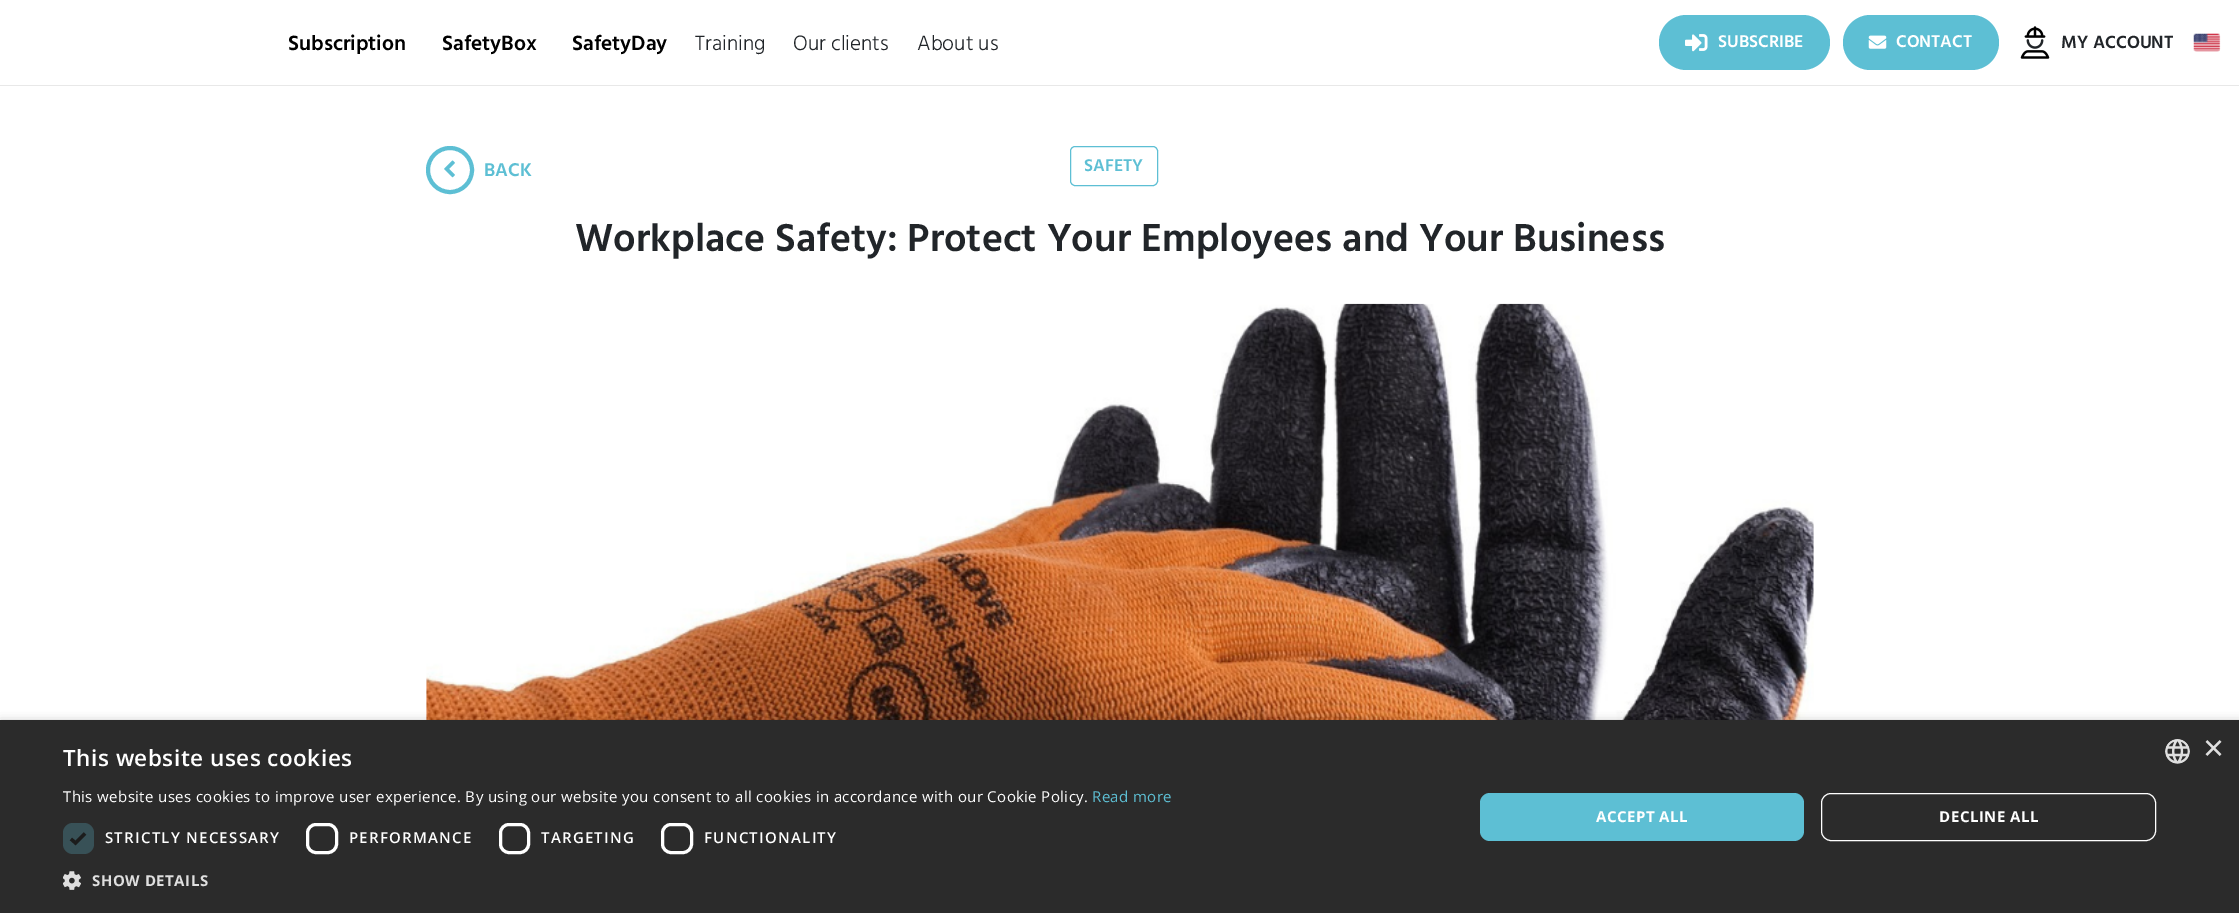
%!PS-Adobe-3.0
%%BoundingBox: 0 0 2239 913
%%LanguageLevel: 3
%%Pages: 1
%%EndComments
%%BeginProlog
/setink { 3 { 255 div 3 1 roll } repeat setrgbcolor } def
/usefont { [ exch dup neg 0 0 3 -1 roll 0 0 ] selectfont } def
/drawtext { setink usefont moveto show } def
/fillbox { setink rectfill } def
/setalpha { dup .setfillconstantalpha .setstrokeconstantalpha } def
/disc { newpath 0 360 arc closepath } def
/rrect { 5 dict begin { /r /h /w /y /x } { exch def } forall
  x r add y moveto x w add y 2 copy h add r arct x w add y h add x 1 index r arct
  x y h add x y r arct x y 2 copy exch w add exch r arct closepath end } def
/softshadow { 12 dict begin { /a /b /q /h /w /y /x } { exch def } forall gsave /was 0 def
  9 -2 -9 { dup b mul 4 div /e exch def 1 sub .425 mul 2.718 exch exp 1 add a .99 .min exch div /now exch def
    1 1 now sub 1 was sub div sub setalpha /was now def
    w h .min e 2 mul add 0 gt { x e sub y e sub w e 2 mul add h e 2 mul add
      q e add b .6 mul add w h .min 2 div e add .min 0 .max rrect fill } if } for grestore end } def
/drawimage { 5 dict begin { /h /w /y /x /name } { exch def } forall
  gsave x y translate w h scale
  w h 8 [w 0 0 h 0 0] name (r) file false 3 colorimage grestore end } def
%%EndProlog
%%BeginSetup
<< /PageSize [2239 913] /PageUsesTransparency true >> setpagedevice
%%EndSetup
%%Page: 1 1
0 .pushpdf14devicefilter
0 913 translate 1 -1 scale
4 setmiterlimit
0 0 2239 913 255 255 255 fillbox
0 85 2239 1 232 232 232 fillbox
(Subscription) 288 50 /HindMadurai-SemiBold 21.25 0 0 0 drawtext
(SafetyBox) 442 50 /HindMadurai-SemiBold 21.25 0 0 0 drawtext
(SafetyDay) 572 50 /HindMadurai-SemiBold 21.25 0 0 0 drawtext
(Training) 695 50 /HindMadurai-Light 21.25 33 37 41 drawtext
(Our clients) 793 50 /HindMadurai-Light 21.25 33 37 41 drawtext
(About us) 917 50 /HindMadurai-Light 21.25 33 37 41 drawtext
93 191 212 setink
1659 15 171 55 27.5 rrect fill
(assets/img1.rgb) 1685 34 23 18 drawimage
(SUBSCRIBE) 1718 47 /HindMadurai-SemiBold 17.5 255 255 255 drawtext
93 191 212 setink
1843 15 156 55 27.5 rrect fill
(assets/img2.rgb) 1868 35 19 14 drawimage
(CONTACT) 1896 47 /HindMadurai-SemiBold 17.5 255 255 255 drawtext
(assets/img3.rgb) 2020 26 30 33 drawimage
(MY ACCOUNT) 2061 48 /HindMadurai-SemiBold 18 33 37 41 drawtext
(assets/img4.rgb) 2193 33 28 19 drawimage
93 191 212 setink
4 setlinewidth
450 170 22 disc stroke
(assets/img5.rgb) 444 160 11 18 drawimage
(BACK) 484 176 /HindMadurai-SemiBold 19 93 191 212 drawtext
1 setlinewidth
1070.5 146.5 87 39 4.5 rrect stroke
(SAFETY) 1084 171 /HindMadurai-SemiBold 17.5 93 191 212 drawtext
(Workplace Safety: Protect Your Employees and Your Business) 575 251 /HindMadurai-SemiBold 40 33 37 41 drawtext
(assets/img6.rgb) 426 303 1388 417 drawimage
0 0 0 setink
1 723 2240 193 0 5 0.35 softshadow
0 720 2239 193 43 43 43 fillbox
/OpenSans-SemiBold 22.5 usefont
255 255 255 setink
63 766 moveto 0.5 0 (This website uses cookies) ashow
/OpenSans-Regular 15 usefont
63 802 moveto 0.38 0 (This website uses cookies to improve user experience. By using our website you consent to all cookies in accordance with our Cookie Policy.) ashow
93 191 212 setink
1092 802 moveto 0.38 0 (Read more) ashow
56 81 87 setink
63 823 31 31 10 rrect fill
28 28 28 setink
3.3 setlinewidth
71 839 moveto 75.5 843 lineto 85 833.5 lineto stroke
/OpenSans-SemiBold 15 usefont
255 255 255 setink
105 843 moveto 1.25 0 (STRICTLY NECESSARY) ashow
3 setlinewidth
307.5 824.5 29 28 8.5 rrect stroke
349 843 moveto 1.25 0 (PERFORMANCE) ashow
500.5 824.5 28 28 8.5 rrect stroke
541 843 moveto 1.25 0 (TARGETING) ashow
662.5 824.5 29 28 8.5 rrect stroke
704 843 moveto 1.25 0 (FUNCTIONALITY) ashow
(assets/img7.rgb) 63 871 18 19 drawimage
/OpenSans-Bold 15 usefont
223 223 223 setink
92 886 moveto 0.5 0 (SHOW DETAILS) ashow
93 191 212 setink
1480 793 324 48 10 rrect fill
255 255 255 setink
1596 822 moveto 0.5 0 (ACCEPT ALL) ashow
1 setlinewidth
1821.5 793.5 334 47 9.5 rrect stroke
1939 822 moveto 0.5 0 (DECLINE ALL) ashow
(assets/img8.rgb) 2165 739 25 25 drawimage
(×) 2203 760 /LiberationSans-Regular 36 223 223 223 drawtext
.poppdf14devicefilter showpage
%%EOF
